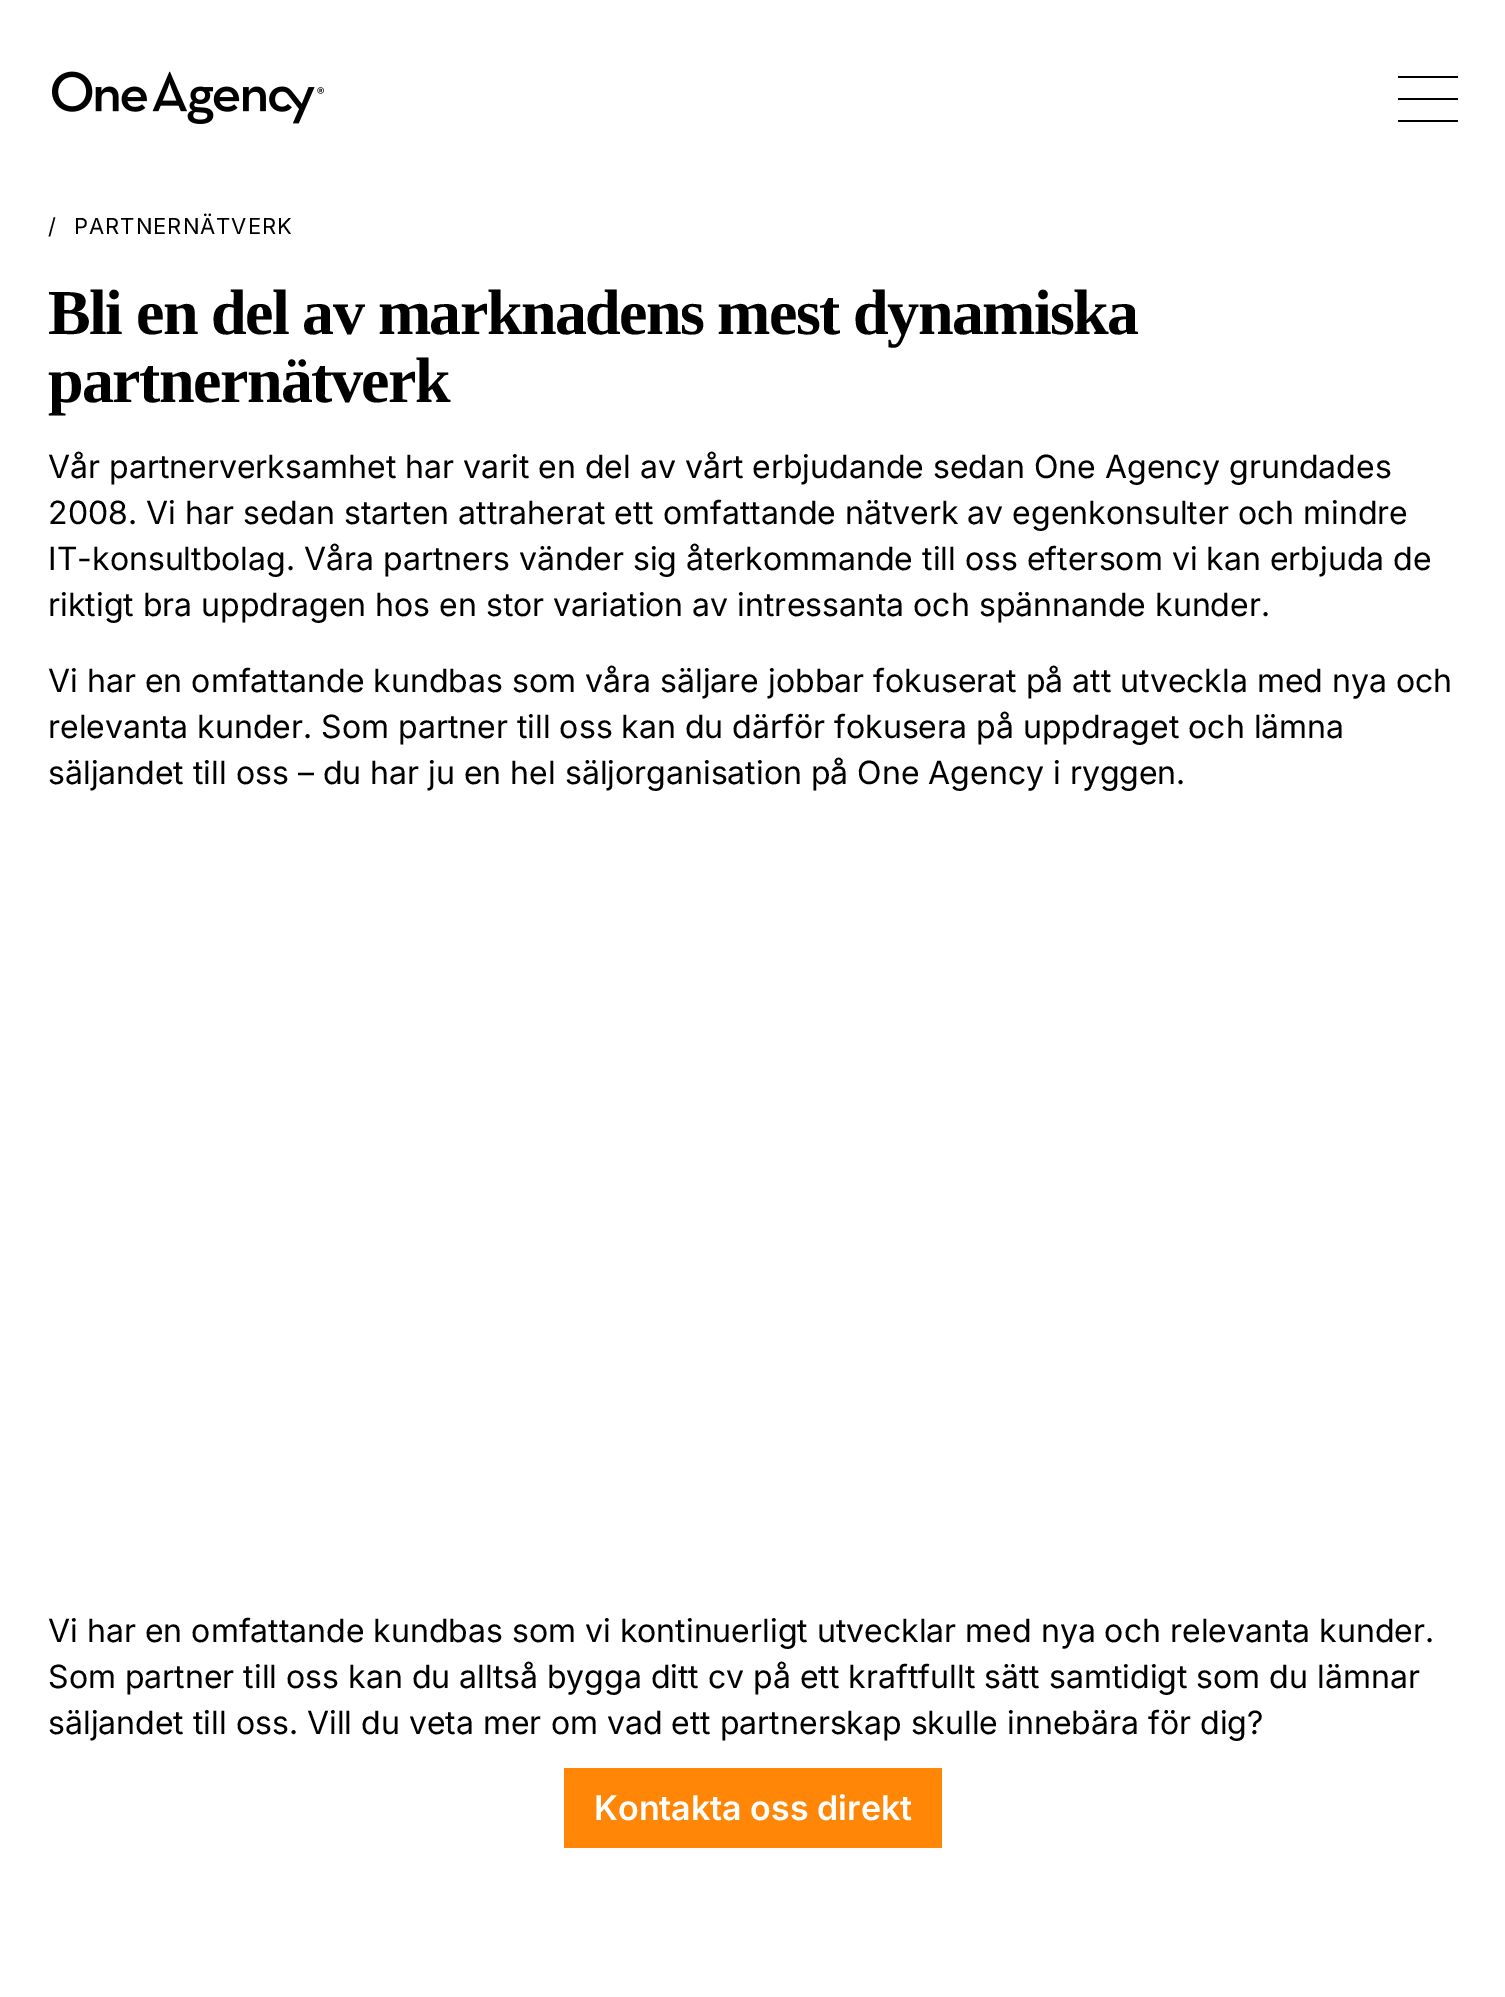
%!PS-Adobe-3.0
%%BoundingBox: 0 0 1505 1997
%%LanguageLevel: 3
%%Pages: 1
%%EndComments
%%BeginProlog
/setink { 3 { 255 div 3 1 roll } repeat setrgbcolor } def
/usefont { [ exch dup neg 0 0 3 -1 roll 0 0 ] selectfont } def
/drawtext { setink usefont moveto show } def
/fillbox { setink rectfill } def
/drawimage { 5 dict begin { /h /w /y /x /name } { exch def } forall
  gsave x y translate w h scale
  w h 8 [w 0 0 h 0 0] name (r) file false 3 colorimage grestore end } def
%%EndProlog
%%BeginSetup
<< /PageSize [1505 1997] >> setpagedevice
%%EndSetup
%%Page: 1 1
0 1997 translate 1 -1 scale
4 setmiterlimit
0 0 1505 1997 255 255 255 fillbox
(assets/img1.rgb) 52 71 272 53 drawimage
1398 98 60 2 0 0 0 fillbox
1398 76 60 2 0 0 0 fillbox
1398 120 60 2 0 0 0 fillbox
/Inter-Regular 22 usefont
48 234 moveto 1 0 (/) ashow
74 234 moveto 1 0 (PARTNERNÄTVERK) ashow
/LiberationSerif-Bold 64 usefont
48 334 moveto -1.6 0 (Bli en del av marknadens mest dynamiska) ashow
48 402 moveto -1.6 0 (partnernätverk) ashow
(Vår partnerverksamhet har varit en del av vårt erbjudande sedan One Agency grundades) 48 478 /Inter-Regular 32 0 0 0 drawtext
(2008. Vi har sedan starten attraherat ett omfattande nätverk av egenkonsulter och mindre) 48 524 /Inter-Regular 32 0 0 0 drawtext
(IT-konsultbolag. Våra partners vänder sig återkommande till oss eftersom vi kan erbjuda de) 48 570 /Inter-Regular 32 0 0 0 drawtext
(riktigt bra uppdragen hos en stor variation av intressanta och spännande kunder.) 48 616 /Inter-Regular 32 0 0 0 drawtext
(Vi har en omfattande kundbas som våra säljare jobbar fokuserat på att utveckla med nya och) 48 692 /Inter-Regular 32 0 0 0 drawtext
(relevanta kunder. Som partner till oss kan du därför fokusera på uppdraget och lämna) 48 738 /Inter-Regular 32 0 0 0 drawtext
(säljandet till oss – du har ju en hel säljorganisation på One Agency i ryggen.) 48 784 /Inter-Regular 32 0 0 0 drawtext
(Vi har en omfattande kundbas som vi kontinuerligt utvecklar med nya och relevanta kunder.) 48 1642 /Inter-Regular 32 0 0 0 drawtext
(Som partner till oss kan du alltså bygga ditt cv på ett kraftfullt sätt samtidigt som du lämnar) 48 1688 /Inter-Regular 32 0 0 0 drawtext
(säljandet till oss. Vill du veta mer om vad ett partnerskap skulle innebära för dig?) 48 1734 /Inter-Regular 32 0 0 0 drawtext
564 1768 378 80 255 134 7 fillbox
(Kontakta oss direkt) 594 1820 /Inter-SemiBold 34 255 255 255 drawtext
showpage
%%EOF
